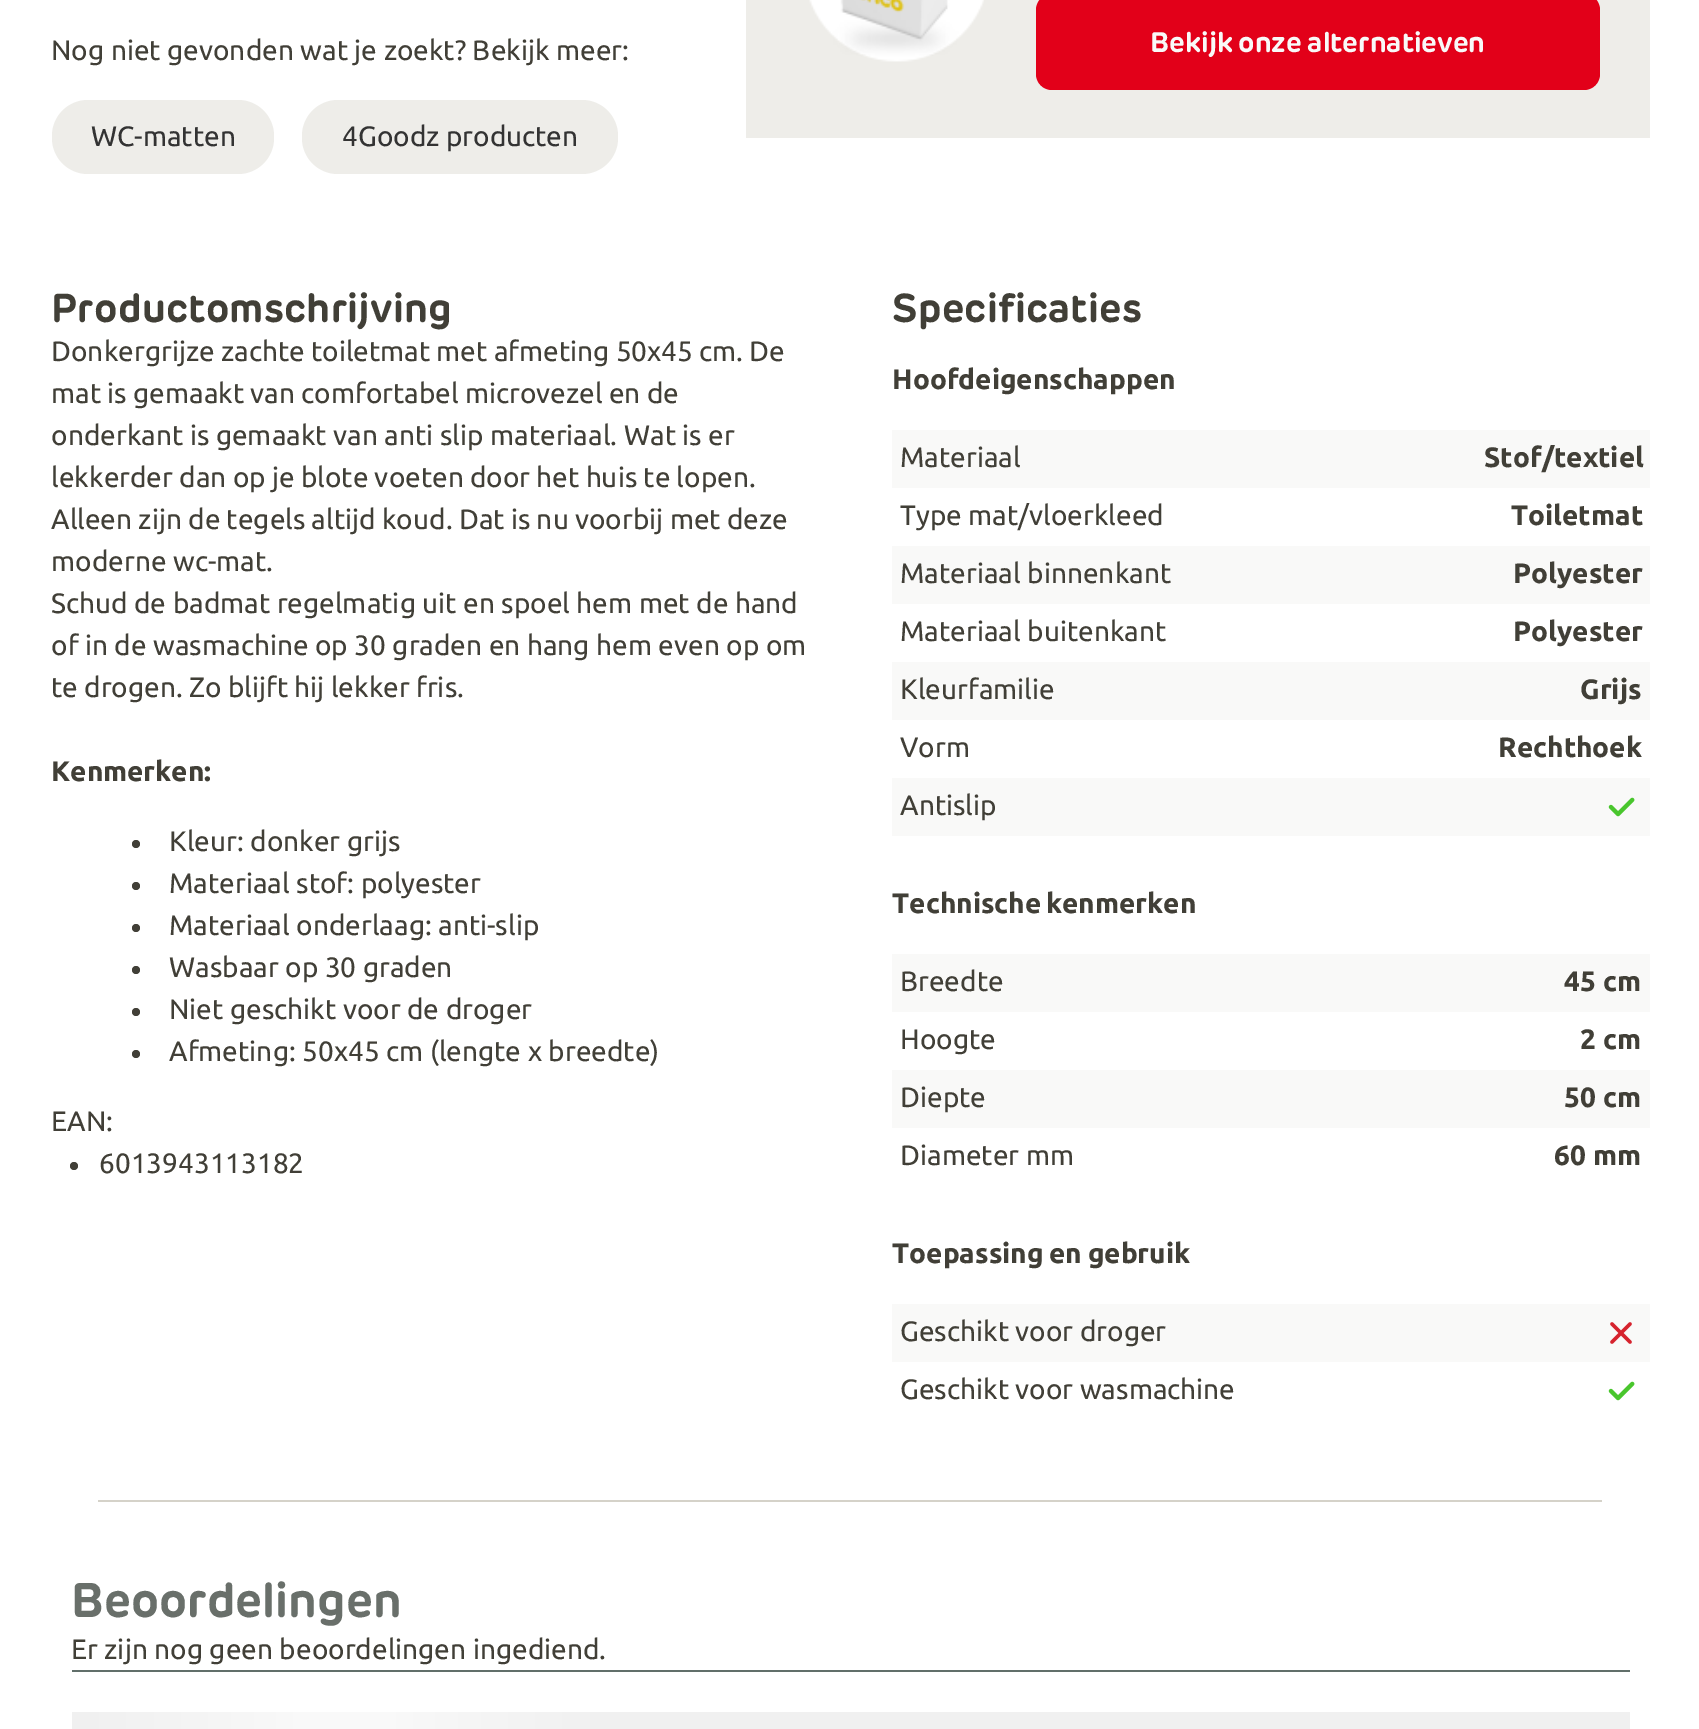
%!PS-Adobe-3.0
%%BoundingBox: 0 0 1699 1729
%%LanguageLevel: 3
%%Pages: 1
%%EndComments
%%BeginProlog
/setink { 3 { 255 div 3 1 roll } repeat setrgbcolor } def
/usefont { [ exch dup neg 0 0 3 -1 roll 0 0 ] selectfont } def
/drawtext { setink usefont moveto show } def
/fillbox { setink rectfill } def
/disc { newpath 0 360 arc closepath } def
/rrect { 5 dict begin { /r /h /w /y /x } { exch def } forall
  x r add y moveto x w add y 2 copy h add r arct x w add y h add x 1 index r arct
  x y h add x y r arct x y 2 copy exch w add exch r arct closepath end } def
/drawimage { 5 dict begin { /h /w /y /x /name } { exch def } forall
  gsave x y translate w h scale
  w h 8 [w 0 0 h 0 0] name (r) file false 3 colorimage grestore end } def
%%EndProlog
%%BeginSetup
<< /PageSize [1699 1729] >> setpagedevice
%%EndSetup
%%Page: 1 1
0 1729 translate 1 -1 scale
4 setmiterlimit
0 0 1699 1729 255 255 255 fillbox
(Nog niet gevonden wat je zoekt? Bekijk meer:) 51 60 /Ubuntu-Regular 28 65 63 55 drawtext
238 237 233 setink
52 100 222 74 36 rrect fill
(WC-matten) 91 146 /Ubuntu-Regular 28 51 51 51 drawtext
238 237 233 setink
302 100 316 74 36 rrect fill
(4Goodz producten) 342 146 /Ubuntu-Regular 28 51 51 51 drawtext
746 0 904 138 238 237 233 fillbox
(assets/img1.rgb) 809 0 175 62 drawimage
226 0 25 setink
1036 -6 564 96 16 rrect fill
/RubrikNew-Bold 28 usefont
249 249 248 setink
1150 52 moveto -1 0 32 (Bekijk onze alternatieven) widthshow
/RubrikNew-Bold 40 usefont
65 63 55 setink
51 322 moveto 0.25 0 (Productomschrijving) ashow
/Ubuntu-Regular 28 usefont
51 361 moveto -0.25 0 32 (Donkergrijze zachte toiletmat met afmeting 50x45 cm. De) widthshow
51 403 moveto -0.25 0 32 (mat is gemaakt van comfortabel microvezel en de) widthshow
(onderkant is gemaakt van anti slip materiaal.) 51 445 /Ubuntu-Regular 28 65 63 55 drawtext
(Wat is er) 624 445 /Ubuntu-Regular 28 65 63 55 drawtext
51 487 moveto -0.25 0 32 (lekkerder dan op je blote voeten door het huis te lopen.) widthshow
51 529 moveto -0.25 0 32 (Alleen zijn de tegels altijd koud. Dat is nu voorbij met deze) widthshow
(moderne wc-mat.) 51 571 /Ubuntu-Regular 28 65 63 55 drawtext
(Schud de badmat regelmatig uit en spoel hem met de hand) 51 613 /Ubuntu-Regular 28 65 63 55 drawtext
(of in de wasmachine op 30 graden en hang hem even op om) 51 655 /Ubuntu-Regular 28 65 63 55 drawtext
51 697 moveto -0.25 0 32 (te drogen. Zo blijft hij lekker fris.) widthshow
(Kenmerken:) 51 781 /Ubuntu-Bold 28 65 63 55 drawtext
136 844 4 disc fill
(Kleur: donker grijs) 169 851 /Ubuntu-Regular 28 65 63 55 drawtext
136 886 4 disc fill
(Materiaal stof: polyester) 169 893 /Ubuntu-Regular 28 65 63 55 drawtext
136 928 4 disc fill
(Materiaal onderlaag: anti-slip) 169 935 /Ubuntu-Regular 28 65 63 55 drawtext
136 970 4 disc fill
(Wasbaar op 30 graden) 169 977 /Ubuntu-Regular 28 65 63 55 drawtext
136 1012 4 disc fill
(Niet geschikt voor de droger) 169 1019 /Ubuntu-Regular 28 65 63 55 drawtext
136 1054 4 disc fill
(Afmeting: 50x45 cm \(lengte x breedte\)) 169 1061 /Ubuntu-Regular 28 65 63 55 drawtext
(EAN:) 51 1131 /Ubuntu-Regular 28 65 63 55 drawtext
74 1166 4 disc fill
(6013943113182) 99 1173 /Ubuntu-Regular 28 65 63 55 drawtext
/RubrikNew-Bold 40 usefont
892 322 moveto 0.25 0 (Specificaties) ashow
(Hoofdeigenschappen) 892 389 /Ubuntu-Bold 28 65 63 55 drawtext
892 430 758 58 249 249 248 fillbox
(Materiaal) 900 467 /Ubuntu-Regular 28 65 63 55 drawtext
(Stof/textiel) 1484 467 /Ubuntu-Bold 28 65 63 55 drawtext
(Type mat/vloerkleed) 900 525 /Ubuntu-Regular 28 65 63 55 drawtext
(Toiletmat) 1511 525 /Ubuntu-Bold 28 65 63 55 drawtext
892 546 758 58 249 249 248 fillbox
(Materiaal binnenkant) 900 583 /Ubuntu-Regular 28 65 63 55 drawtext
(Polyester) 1513 583 /Ubuntu-Bold 28 65 63 55 drawtext
(Materiaal buitenkant) 900 641 /Ubuntu-Regular 28 65 63 55 drawtext
(Polyester) 1513 641 /Ubuntu-Bold 28 65 63 55 drawtext
892 662 758 58 249 249 248 fillbox
(Kleurfamilie) 900 699 /Ubuntu-Regular 28 65 63 55 drawtext
(Grijs) 1580 699 /Ubuntu-Bold 28 65 63 55 drawtext
(Vorm) 900 757 /Ubuntu-Regular 28 65 63 55 drawtext
(Rechthoek) 1498 757 /Ubuntu-Bold 28 65 63 55 drawtext
892 778 758 58 249 249 248 fillbox
(Antislip) 900 815 /Ubuntu-Regular 28 65 63 55 drawtext
(assets/img2.rgb) 1608 797 27 20 drawimage
/Ubuntu-Bold 28 usefont
892 913 moveto -2 0 32 (Technische kenmerken) widthshow
892 954 758 58 249 249 248 fillbox
(Breedte) 900 991 /Ubuntu-Regular 28 65 63 55 drawtext
(45 cm) 1564 991 /Ubuntu-Bold 28 65 63 55 drawtext
(Hoogte) 900 1049 /Ubuntu-Regular 28 65 63 55 drawtext
(2 cm) 1580 1049 /Ubuntu-Bold 28 65 63 55 drawtext
892 1070 758 58 249 249 248 fillbox
(Diepte) 900 1107 /Ubuntu-Regular 28 65 63 55 drawtext
(50 cm) 1564 1107 /Ubuntu-Bold 28 65 63 55 drawtext
(Diameter mm) 900 1165 /Ubuntu-Regular 28 65 63 55 drawtext
(60 mm) 1554 1165 /Ubuntu-Bold 28 65 63 55 drawtext
892 1263 moveto -1 0 32 (Toepassing en gebruik) widthshow
892 1304 758 58 249 249 248 fillbox
(Geschikt voor droger) 900 1341 /Ubuntu-Regular 28 65 63 55 drawtext
214 35 46 setink
3.5 setlinewidth
1 setlinecap
1 setlinejoin
1612 1324 moveto 1630 1342 lineto 1630 1324 moveto 1612 1342 lineto stroke
(Geschikt voor wasmachine) 900 1399 /Ubuntu-Regular 28 65 63 55 drawtext
(assets/img3.rgb) 1608 1381 27 20 drawimage
98 1500 1504 2 213 210 201 fillbox
(Beoordelingen) 71 1617 /RubrikNew-Bold 48 105 111 106 drawtext
72 1670 1558 2 97 111 106 fillbox
(Er zijn nog geen beoordelingen ingediend.) 71 1659 /Ubuntu-Regular 28 65 63 55 drawtext
72 1712 1558 17 240 240 240 fillbox
gsave 82 1712 moveto 618 1712 lineto 618 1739 lineto 82 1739 lineto 76.5 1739 72 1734.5 72 1729 curveto 72 1722 lineto 72 1716.5 76.5 1712 82 1712 curveto closepath clip newpath
<< /ShadingType 2 /ColorSpace /DeviceRGB /Coords [72 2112 617 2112] /Extend [true true] /Function << /FunctionType 3 /Domain [0 1] /Functions [<< /FunctionType 2 /Domain [0 1] /C0 [0.941 0.941 0.941] /C1 [0.976 0.976 0.976] /N 1 >> << /FunctionType 2 /Domain [0 1] /C0 [0.976 0.976 0.976] /C1 [0.976 0.976 0.976] /N 1 >> << /FunctionType 2 /Domain [0 1] /C0 [0.976 0.976 0.976] /C1 [0.941 0.941 0.941] /N 1 >>] /Bounds [0.41 0.59] /Encode [0 1 0 1 0 1] >> >> shfill grestore
showpage
%%EOF
